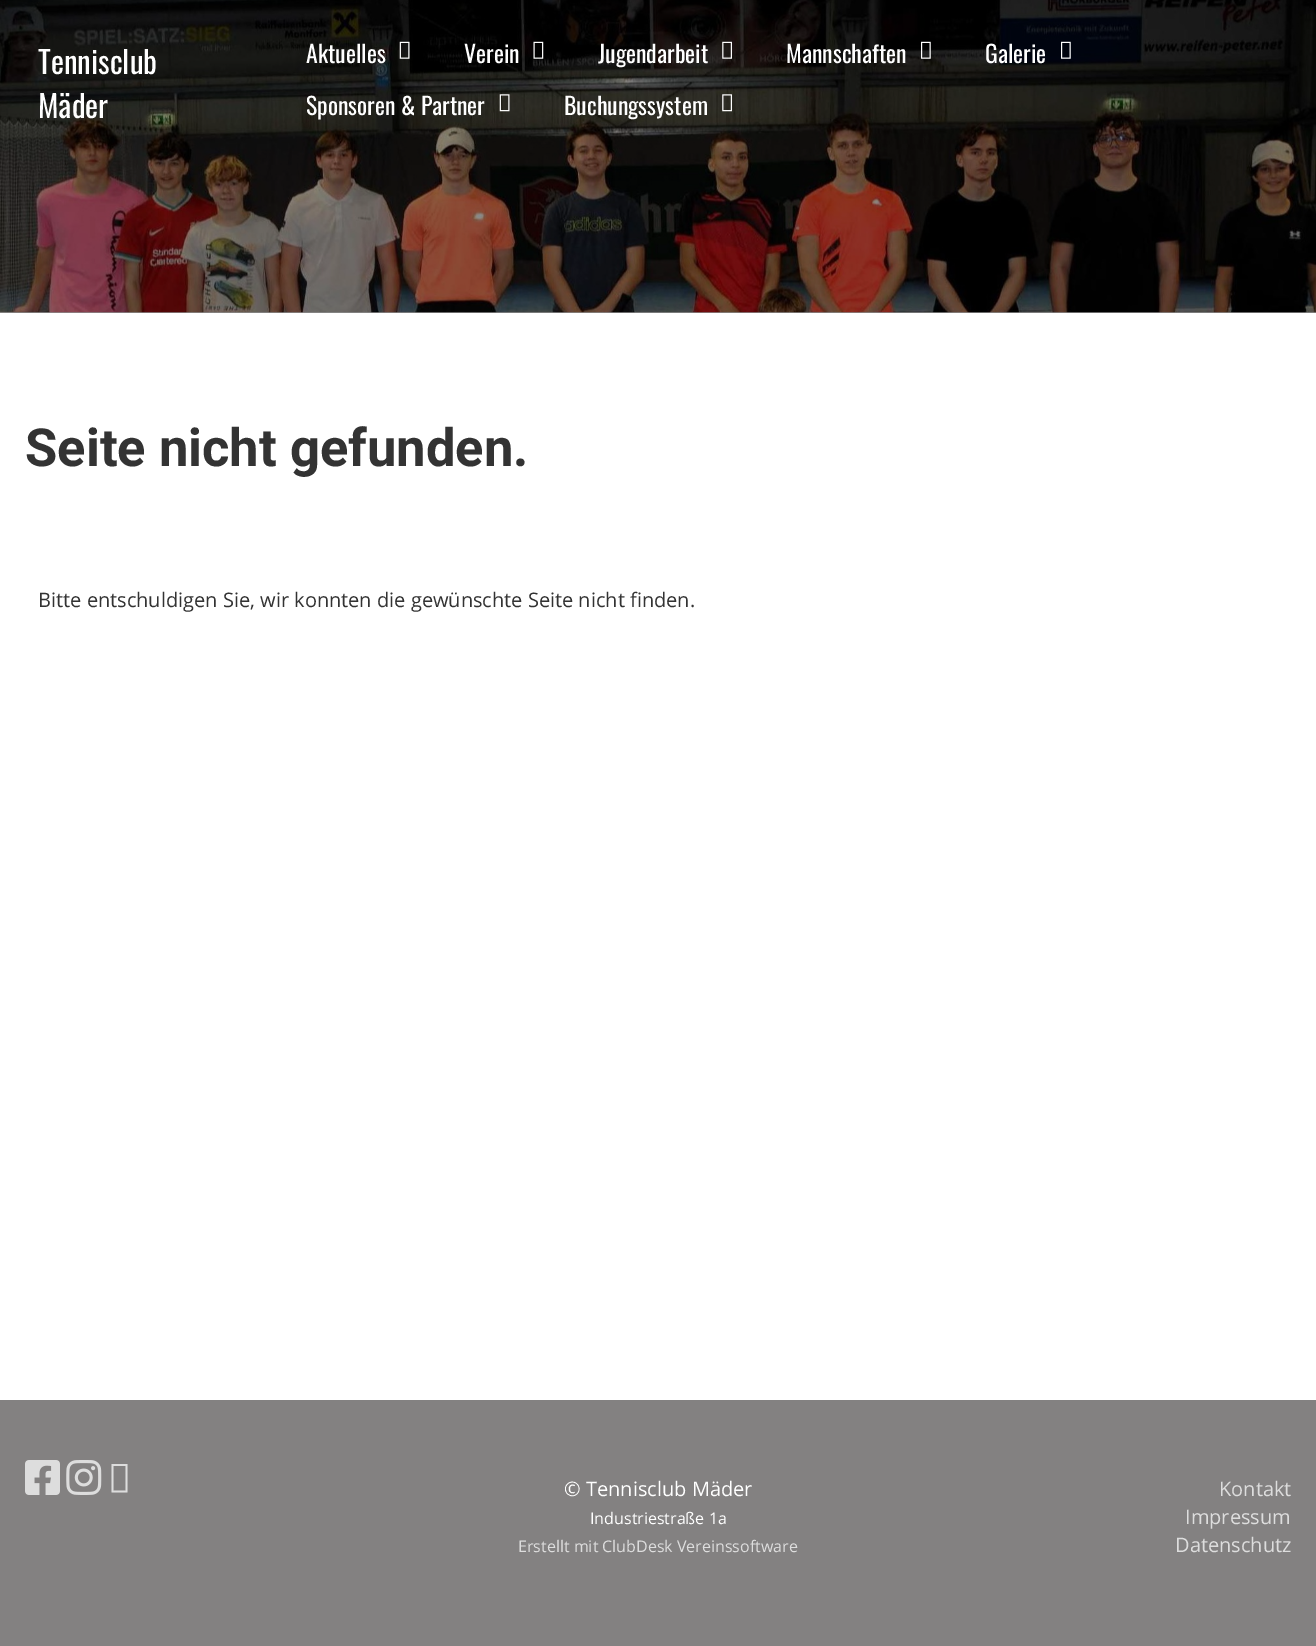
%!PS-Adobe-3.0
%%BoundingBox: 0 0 1316 1646
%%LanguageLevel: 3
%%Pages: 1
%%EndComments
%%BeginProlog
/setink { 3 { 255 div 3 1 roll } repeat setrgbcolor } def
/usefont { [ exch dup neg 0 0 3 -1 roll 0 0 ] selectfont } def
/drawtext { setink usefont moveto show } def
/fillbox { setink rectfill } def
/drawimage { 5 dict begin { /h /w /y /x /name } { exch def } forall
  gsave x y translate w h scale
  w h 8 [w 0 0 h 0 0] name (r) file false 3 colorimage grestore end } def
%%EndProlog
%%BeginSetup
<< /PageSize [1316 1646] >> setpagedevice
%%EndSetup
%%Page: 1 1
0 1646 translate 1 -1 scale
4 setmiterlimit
0 0 1316 1646 255 255 255 fillbox
0 312 1316 1 140 140 140 fillbox
(assets/img8.rgb) 0 0 1316 313 drawimage
(Tennisclub) 38 74 /Oswald-Regular 31 255 255 255 drawtext
(Mäder) 38 118 /Oswald-Regular 31 255 255 255 drawtext
(Aktuelles) 306 63 /Oswald-Regular 23.75 255 255 255 drawtext
(assets/img1.rgb) 399 41 11 18 drawimage
(Verein) 464 63 /Oswald-Regular 23.75 255 255 255 drawtext
(assets/img2.rgb) 533 41 11 18 drawimage
(Jugendarbeit) 598 63 /Oswald-Regular 23.75 255 255 255 drawtext
(assets/img3.rgb) 722 41 10 18 drawimage
(Mannschaften) 786 63 /Oswald-Regular 23.75 255 255 255 drawtext
(assets/img4.rgb) 921 41 10 18 drawimage
(Galerie) 985 63 /Oswald-Regular 23.75 255 255 255 drawtext
(assets/img5.rgb) 1061 41 10 18 drawimage
(Sponsoren & Partner) 306 115 /Oswald-Regular 23.75 255 255 255 drawtext
(assets/img6.rgb) 499 94 11 18 drawimage
(Buchungssystem) 564 115 /Oswald-Regular 23.75 255 255 255 drawtext
(assets/img7.rgb) 722 94 10 18 drawimage
(Seite nicht gefunden.) 25 466 /Roboto-Bold 52.5 51 51 51 drawtext
(Bitte entschuldigen Sie, wir konnten die gewünschte Seite nicht finden.) 38 607 /OpenSans-Regular 20 51 51 51 drawtext
0 1400 1316 246 131 129 129 fillbox
(assets/img9.rgb) 25 1460 35 35 drawimage
(assets/img10.rgb) 66 1460 36 35 drawimage
221 221 221 setink
111.5 1492.5 moveto 111.5 1464 lineto 127.5 1464 lineto 127.5 1492.5 lineto closepath 113.5 1490.5 moveto 125.5 1490.5 lineto 125.5 1466 lineto 113.5 1466 lineto closepath fill
(© Tennisclub Mäder) 564 1496 /OpenSans-Regular 20 255 255 255 drawtext
(Industriestraße 1a) 590 1524 /OpenSans-Regular 16 255 255 255 drawtext
(Erstellt mit ClubDesk Vereinssoftware) 518 1552 /OpenSans-Regular 16 221 221 221 drawtext
(Kontakt) 1219 1496 /OpenSans-Regular 20 221 221 221 drawtext
(Impressum) 1185 1524 /OpenSans-Regular 20 221 221 221 drawtext
(Datenschutz) 1175 1552 /OpenSans-Regular 20 221 221 221 drawtext
showpage
%%EOF
